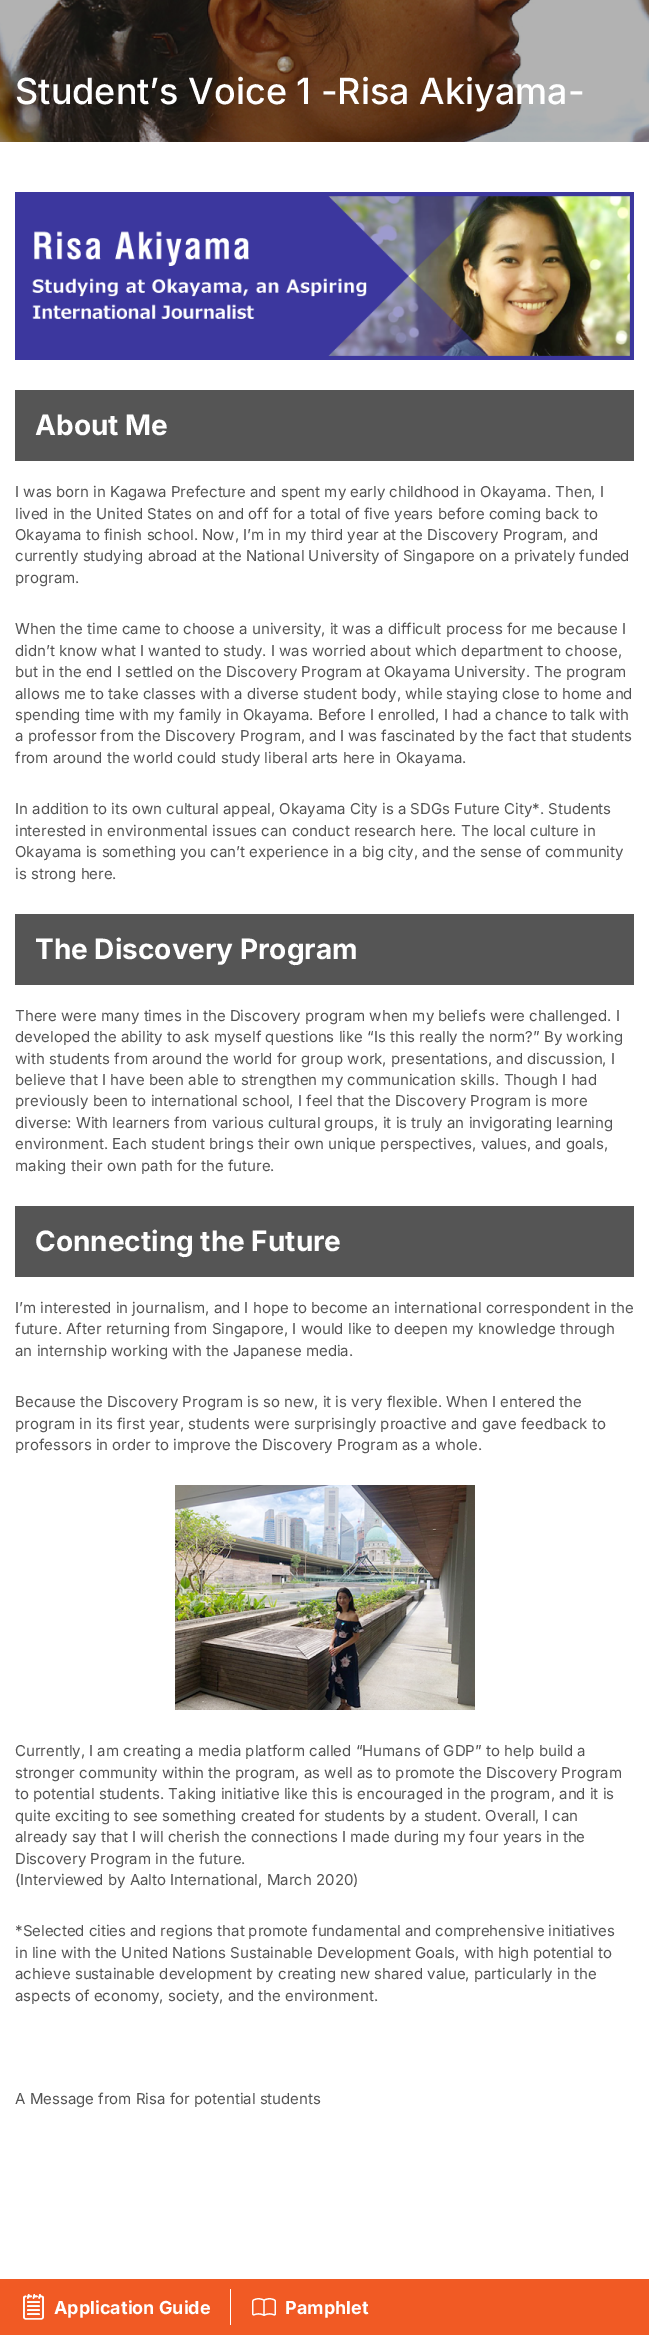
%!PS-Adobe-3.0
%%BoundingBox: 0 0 649 2335
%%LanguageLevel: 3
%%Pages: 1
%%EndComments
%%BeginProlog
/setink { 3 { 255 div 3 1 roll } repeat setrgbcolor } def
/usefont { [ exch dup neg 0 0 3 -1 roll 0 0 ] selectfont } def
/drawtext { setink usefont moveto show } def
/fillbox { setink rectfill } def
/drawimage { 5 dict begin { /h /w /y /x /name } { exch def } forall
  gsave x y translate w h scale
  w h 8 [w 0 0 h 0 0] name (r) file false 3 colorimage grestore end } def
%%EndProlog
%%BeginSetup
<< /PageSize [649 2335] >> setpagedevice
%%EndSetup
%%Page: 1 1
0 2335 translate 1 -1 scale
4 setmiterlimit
0 0 649 2335 255 255 255 fillbox
(assets/img1.rgb) 0 0 649 142 drawimage
(Student’s Voice 1 -Risa Akiyama-) 15 104 /Inter-Medium 36 255 255 255 drawtext
(assets/img2.rgb) 15 192 619 168 drawimage
15 390 619 71 85 85 85 fillbox
(About Me) 35 435 /Inter-Bold 28 255 255 255 drawtext
(I was born in Kagawa Prefecture and spent my early childhood in Okayama. Then, I) 15 497 /Inter-Regular 15 84 84 84 drawtext
(lived in the United States on and off for a total of five years before coming back to) 15 519 /Inter-Regular 15 84 84 84 drawtext
(Okayama to finish school. Now, I’m in my third year at the Discovery Program, and) 15 540 /Inter-Regular 15 84 84 84 drawtext
(currently studying abroad at the National University of Singapore on a privately funded) 15 561 /Inter-Regular 15 84 84 84 drawtext
(program.) 15 583 /Inter-Regular 15 84 84 84 drawtext
(When the time came to choose a university, it was a difficult process for me because I) 15 634 /Inter-Regular 15 84 84 84 drawtext
(didn’t know what I wanted to study. I was worried about which department to choose,) 15 656 /Inter-Regular 15 84 84 84 drawtext
(but in the end I settled on the Discovery Program at Okayama University. The program) 15 677 /Inter-Regular 15 84 84 84 drawtext
(allows me to take classes with a diverse student body, while staying close to home and) 15 699 /Inter-Regular 15 84 84 84 drawtext
(spending time with my family in Okayama. Before I enrolled, I had a chance to talk with) 15 720 /Inter-Regular 15 84 84 84 drawtext
(a professor from the Discovery Program, and I was fascinated by the fact that students) 15 741 /Inter-Regular 15 84 84 84 drawtext
(from around the world could study liberal arts here in Okayama.) 15 763 /Inter-Regular 15 84 84 84 drawtext
(In addition to its own cultural appeal, Okayama City is a SDGs Future City*. Students) 15 814 /Inter-Regular 15 84 84 84 drawtext
(interested in environmental issues can conduct research here. The local culture in) 15 836 /Inter-Regular 15 84 84 84 drawtext
(Okayama is something you can’t experience in a big city, and the sense of community) 15 857 /Inter-Regular 15 84 84 84 drawtext
(is strong here.) 15 879 /Inter-Regular 15 84 84 84 drawtext
15 914 619 71 85 85 85 fillbox
(The Discovery Program) 35 959 /Inter-Bold 28 255 255 255 drawtext
(There were many times in the Discovery program when my beliefs were challenged. I) 15 1021 /Inter-Regular 15 84 84 84 drawtext
(developed the ability to ask myself questions like “Is this really the norm?” By working) 15 1042 /Inter-Regular 15 84 84 84 drawtext
(with students from around the world for group work, presentations, and discussion, I) 15 1064 /Inter-Regular 15 84 84 84 drawtext
(believe that I have been able to strengthen my communication skills. Though I had) 15 1085 /Inter-Regular 15 84 84 84 drawtext
(previously been to international school, I feel that the Discovery Program is more) 15 1106 /Inter-Regular 15 84 84 84 drawtext
(diverse: With learners from various cultural groups, it is truly an invigorating learning) 15 1128 /Inter-Regular 15 84 84 84 drawtext
(environment. Each student brings their own unique perspectives, values, and goals,) 15 1149 /Inter-Regular 15 84 84 84 drawtext
(making their own path for the future.) 15 1171 /Inter-Regular 15 84 84 84 drawtext
15 1206 619 71 85 85 85 fillbox
(Connecting the Future) 35 1251 /Inter-Bold 28 255 255 255 drawtext
(I’m interested in journalism, and I hope to become an international correspondent in the) 15 1313 /Inter-Regular 15 84 84 84 drawtext
(future. After returning from Singapore, I would like to deepen my knowledge through) 15 1334 /Inter-Regular 15 84 84 84 drawtext
(an internship working with the Japanese media.) 15 1356 /Inter-Regular 15 84 84 84 drawtext
(Because the Discovery Program is so new, it is very flexible. When I entered the) 15 1407 /Inter-Regular 15 84 84 84 drawtext
(program in its first year, students were surprisingly proactive and gave feedback to) 15 1429 /Inter-Regular 15 84 84 84 drawtext
(professors in order to improve the Discovery Program as a whole.) 15 1450 /Inter-Regular 15 84 84 84 drawtext
(assets/img3.rgb) 175 1485 300 225 drawimage
(Currently, I am creating a media platform called “Humans of GDP” to help build a) 15 1756 /Inter-Regular 15 84 84 84 drawtext
(stronger community within the program, as well as to promote the Discovery Program) 15 1778 /Inter-Regular 15 84 84 84 drawtext
(to potential students. Taking initiative like this is encouraged in the program, and it is) 15 1799 /Inter-Regular 15 84 84 84 drawtext
(quite exciting to see something created for students by a student. Overall, I can) 15 1821 /Inter-Regular 15 84 84 84 drawtext
(already say that I will cherish the connections I made during my four years in the) 15 1842 /Inter-Regular 15 84 84 84 drawtext
(Discovery Program in the future.) 15 1864 /Inter-Regular 15 84 84 84 drawtext
(\(Interviewed by Aalto International, March 2020\)) 15 1885 /Inter-Regular 15 84 84 84 drawtext
15 1936 moveto -0.25 0 32 (*Selected cities and regions that promote fundamental and comprehensive initiatives) widthshow
(in line with the United Nations Sustainable Development Goals, with high potential to) 15 1958 /Inter-Regular 15 84 84 84 drawtext
(achieve sustainable development by creating new shared value, particularly in the) 15 1979 /Inter-Regular 15 84 84 84 drawtext
(aspects of economy, society, and the environment.) 15 2001 /Inter-Regular 15 84 84 84 drawtext
(A Message from Risa for potential students) 15 2104 /Inter-Regular 15 84 84 84 drawtext
0 2279 649 56 241 90 36 fillbox
(assets/img4.rgb) 23 2294 21 26 drawimage
(Application Guide) 54 2314 /Inter-Bold 18 255 255 255 drawtext
230 2289 1 36 255 255 255 fillbox
(assets/img5.rgb) 252 2298 24 18 drawimage
(Pamphlet) 285 2314 /Inter-Bold 18 255 255 255 drawtext
showpage
%%EOF
